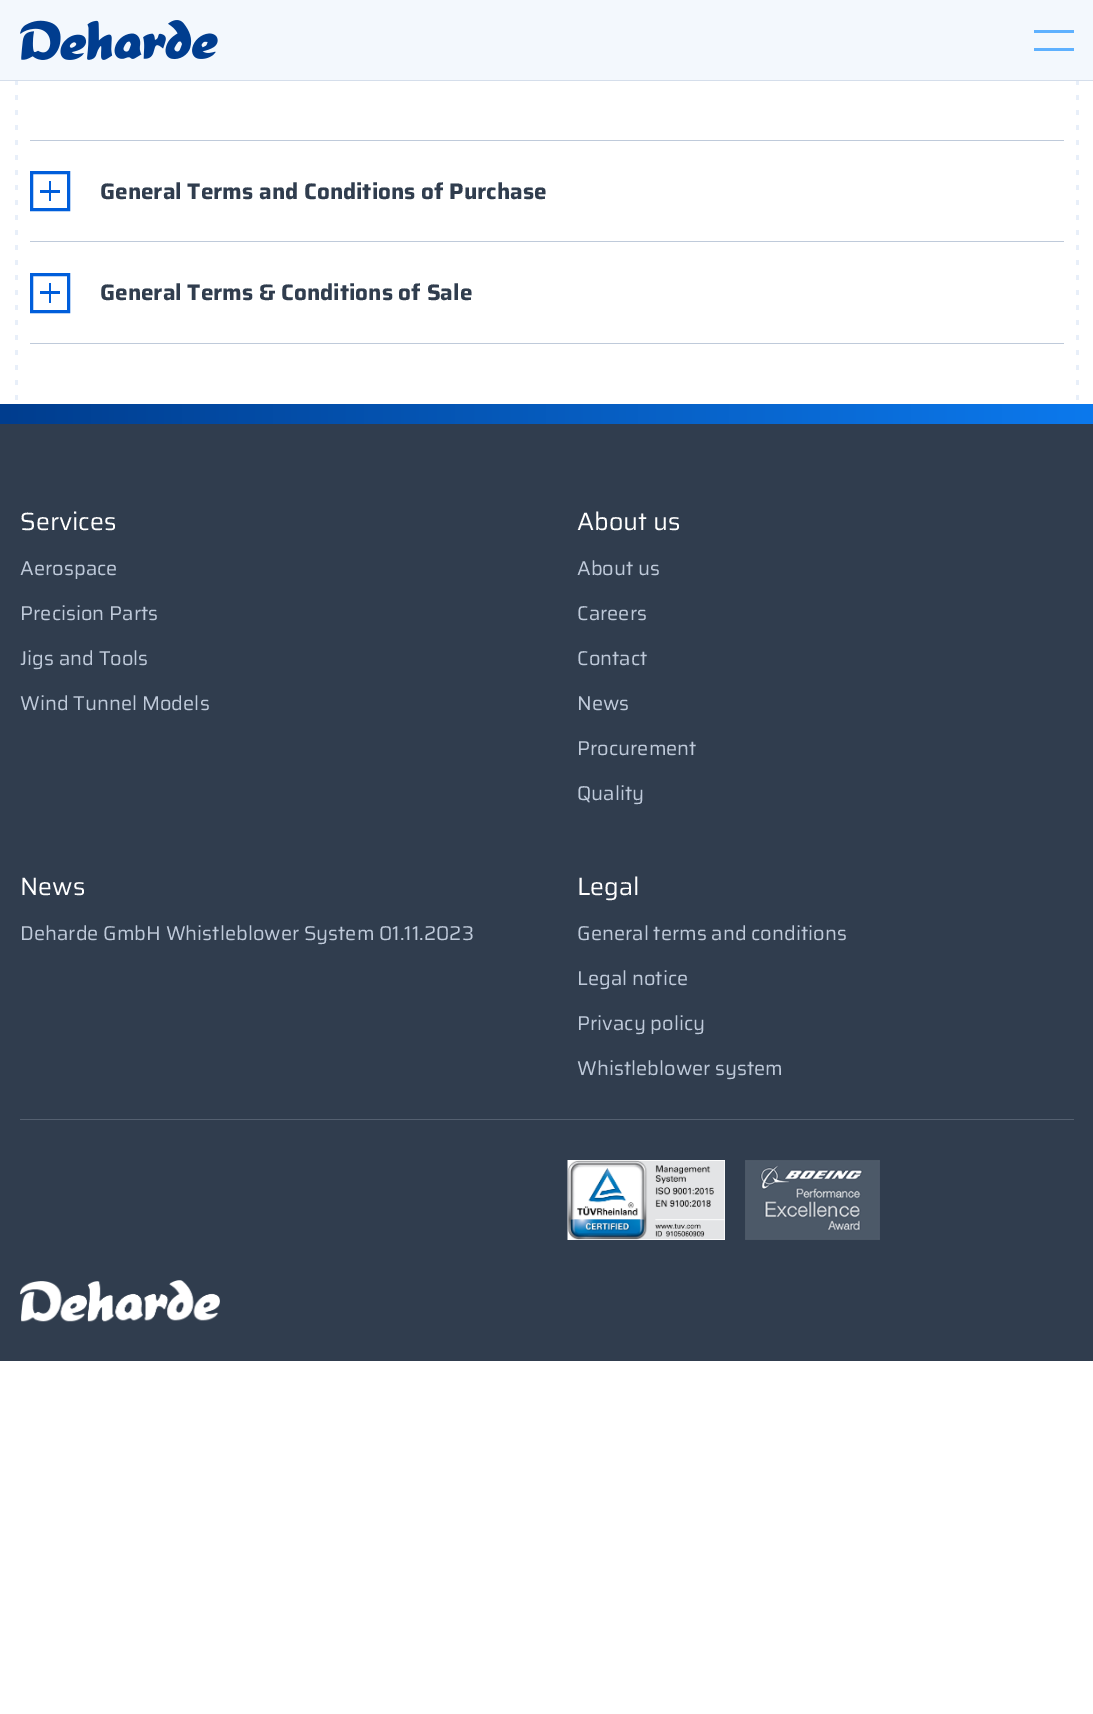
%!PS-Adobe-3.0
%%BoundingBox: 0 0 1093 1714
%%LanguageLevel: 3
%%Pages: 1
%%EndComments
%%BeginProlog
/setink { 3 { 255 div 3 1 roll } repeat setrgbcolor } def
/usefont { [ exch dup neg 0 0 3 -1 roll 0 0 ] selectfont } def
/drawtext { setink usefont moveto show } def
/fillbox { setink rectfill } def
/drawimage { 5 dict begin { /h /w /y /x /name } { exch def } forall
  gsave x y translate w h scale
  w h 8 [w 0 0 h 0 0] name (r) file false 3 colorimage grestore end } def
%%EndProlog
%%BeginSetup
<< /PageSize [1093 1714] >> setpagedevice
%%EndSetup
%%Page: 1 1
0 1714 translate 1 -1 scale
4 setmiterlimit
0 0 1093 1714 255 255 255 fillbox
0 0 1093 80 243 248 253 fillbox
0 80 1093 1 213 222 235 fillbox
(assets/img1.rgb) 20 20 198 40 drawimage
1034 30 40 3 94 177 255 fillbox
1034 48 40 3 94 177 255 fillbox
(assets/img2.rgb) 15 81 3 319 drawimage
(assets/img2.rgb) 1076 81 3 319 drawimage
30 140 1034 1 191 202 218 fillbox
0 94 219 setink
3 setlinewidth
31.5 172.5 37 37 rectstroke
40 190 20 3 0 94 219 fillbox
49 181 2 20 0 94 219 fillbox
(General Terms and Conditions of Purchase) 100 199 /Saira-Bold 22.5 48 61 78 drawtext
30 241 1034 1 191 202 218 fillbox
30 343 1034 1 191 202 218 fillbox
0 94 219 setink
31.5 274.5 37 37 rectstroke
40 291 20 3 0 94 219 fillbox
49 283 2 20 0 94 219 fillbox
(General Terms & Conditions of Sale) 100 300 /Saira-Bold 22.5 48 61 78 drawtext
0 424 1093 937 48 61 78 fillbox
gsave 0 404 moveto 1093 404 lineto 1093 424 lineto 0 424 lineto closepath clip newpath
<< /ShadingType 2 /ColorSpace /DeviceRGB /Coords [0 414 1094 414] /Extend [true true] /Function << /FunctionType 2 /Domain [0 1] /C0 [0 0.239 0.557] /C1 [0.047 0.475 0.929] /N 1 >> >> shfill grestore
20 1119 1054 1 84 96 112 fillbox
(Services) 20 530 /Saira-Regular 25 255 255 255 drawtext
(Aerospace) 20 575 /Saira-Regular 20 191 202 218 drawtext
(Precision Parts) 20 620 /Saira-Regular 20 191 202 218 drawtext
(Jigs and Tools) 20 665 /Saira-Regular 20 191 202 218 drawtext
(Wind Tunnel Models) 20 710 /Saira-Regular 20 191 202 218 drawtext
(About us) 577 530 /Saira-Regular 25 255 255 255 drawtext
(About us) 577 575 /Saira-Regular 20 191 202 218 drawtext
(Careers) 577 620 /Saira-Regular 20 191 202 218 drawtext
(Contact) 577 665 /Saira-Regular 20 191 202 218 drawtext
(News) 577 710 /Saira-Regular 20 191 202 218 drawtext
(Procurement) 577 755 /Saira-Regular 20 191 202 218 drawtext
(Quality) 577 800 /Saira-Regular 20 191 202 218 drawtext
(News) 20 895 /Saira-Regular 25 255 255 255 drawtext
(Deharde GmbH Whistleblower System 01.11.2023) 20 940 /Saira-Regular 20 191 202 218 drawtext
(Legal) 577 895 /Saira-Regular 25 255 255 255 drawtext
(General terms and conditions) 577 940 /Saira-Regular 20 191 202 218 drawtext
(Legal notice) 577 985 /Saira-Regular 20 191 202 218 drawtext
(Privacy policy) 577 1030 /Saira-Regular 20 191 202 218 drawtext
(Whistleblower system) 577 1075 /Saira-Regular 20 191 202 218 drawtext
(assets/img3.rgb) 567 1160 158 80 drawimage
(assets/img4.rgb) 745 1160 135 80 drawimage
(assets/img5.rgb) 20 1280 200 42 drawimage
showpage
%%EOF
